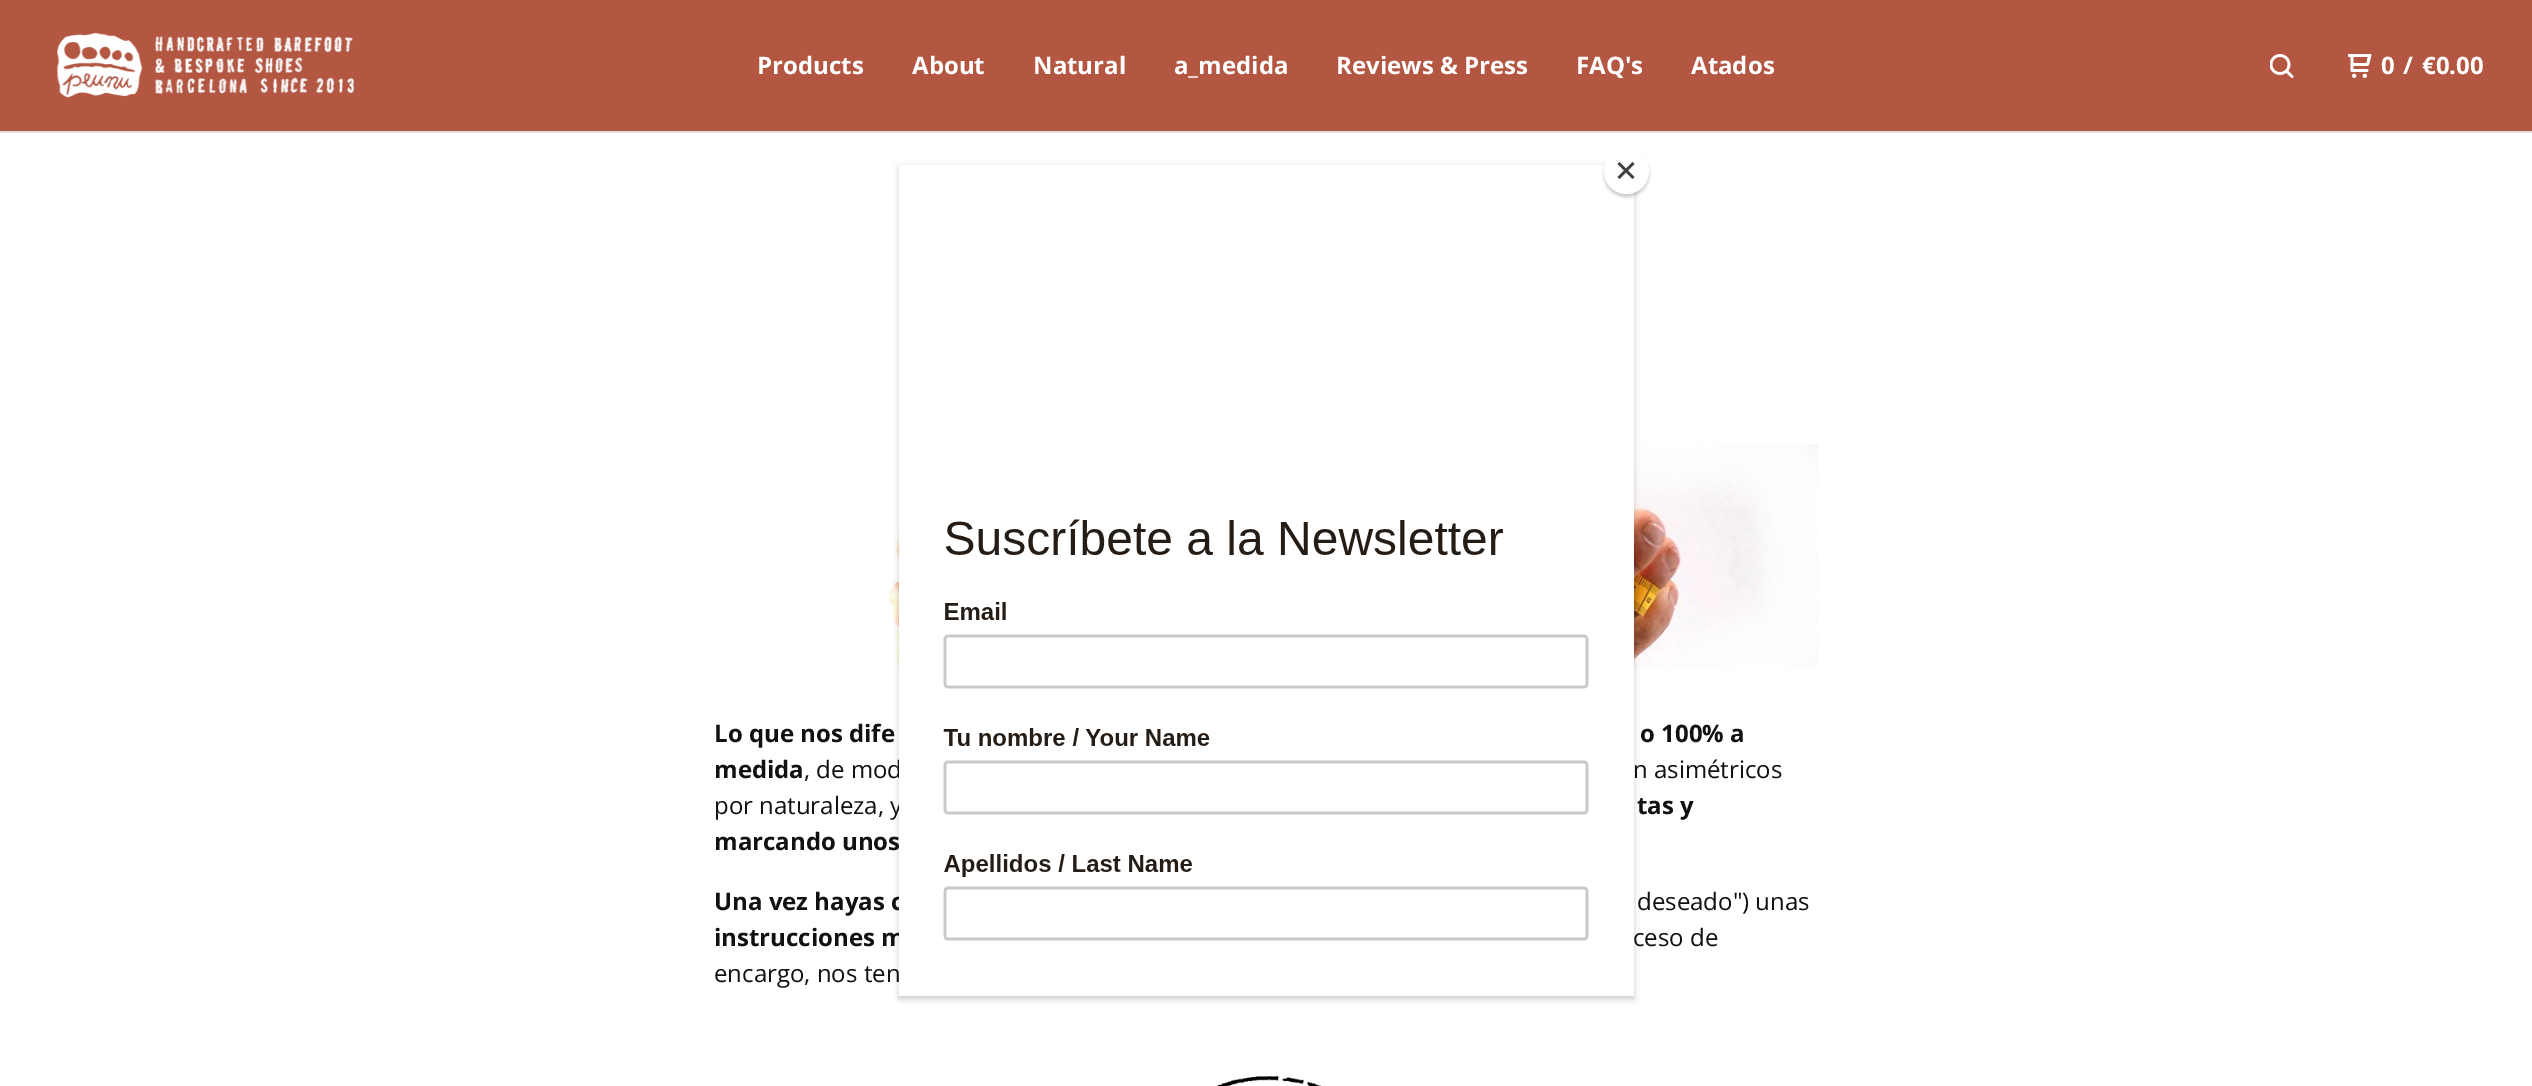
%!PS-Adobe-3.0
%%BoundingBox: 0 0 2532 1086
%%LanguageLevel: 3
%%Pages: 1
%%EndComments
%%BeginProlog
/setink { 3 { 255 div 3 1 roll } repeat setrgbcolor } def
/usefont { [ exch dup neg 0 0 3 -1 roll 0 0 ] selectfont } def
/drawtext { setink usefont moveto show } def
/fillbox { setink rectfill } def
/setalpha { dup .setfillconstantalpha .setstrokeconstantalpha } def
/disc { newpath 0 360 arc closepath } def
/rrect { 5 dict begin { /r /h /w /y /x } { exch def } forall
  x r add y moveto x w add y 2 copy h add r arct x w add y h add x 1 index r arct
  x y h add x y r arct x y 2 copy exch w add exch r arct closepath end } def
/softshadow { 12 dict begin { /a /b /q /h /w /y /x } { exch def } forall gsave /was 0 def
  9 -2 -9 { dup b mul 4 div /e exch def 1 sub .425 mul 2.718 exch exp 1 add a .99 .min exch div /now exch def
    1 1 now sub 1 was sub div sub setalpha /was now def
    w h .min e 2 mul add 0 gt { x e sub y e sub w e 2 mul add h e 2 mul add
      q e add b .6 mul add w h .min 2 div e add .min 0 .max rrect fill } if } for grestore end } def
/drawimage { 5 dict begin { /h /w /y /x /name } { exch def } forall
  gsave x y translate w h scale
  w h 8 [w 0 0 h 0 0] name (r) file false 3 colorimage grestore end } def
%%EndProlog
%%BeginSetup
<< /PageSize [2532 1086] /PageUsesTransparency true >> setpagedevice
%%EndSetup
%%Page: 1 1
0 .pushpdf14devicefilter
0 1086 translate 1 -1 scale
4 setmiterlimit
0 0 2532 1086 255 255 255 fillbox
0 0 2532 131 179 86 66 fillbox
0 131 2532 2 226 226 226 fillbox
(assets/img1.rgb) 57 32 298 66 drawimage
(Products) 757 74 /OpenSans-Bold 24 255 255 255 drawtext
(About) 912 74 /OpenSans-Bold 24 255 255 255 drawtext
(Natural) 1033 74 /OpenSans-Bold 24 255 255 255 drawtext
(a_medida) 1174 74 /OpenSans-Bold 24 255 255 255 drawtext
(Reviews & Press) 1336 74 /OpenSans-Bold 24 255 255 255 drawtext
(FAQ's) 1576 74 /OpenSans-Bold 24 255 255 255 drawtext
(Atados) 1691 74 /OpenSans-Bold 24 255 255 255 drawtext
(assets/img2.rgb) 2270 54 24 24 drawimage
(assets/img3.rgb) 2348 54 24 24 drawimage
(0) 2381 74 /OpenSans-Bold 24 255 255 255 drawtext
(/) 2403 74 /OpenSans-Bold 24 255 255 255 drawtext
(€0.00) 2422 74 /OpenSans-Bold 24 255 255 255 drawtext
(assets/img5.rgb) 888 444 930 224 drawimage
0 0 0 setink
899 167 735 832 0 3 0.2 softshadow
(, de mod) 804 778 /OpenSans-Regular 24 17 17 17 drawtext
(por naturaleza, y) 714 814 /OpenSans-Regular 24 17 17 17 drawtext
(marcando unos) 714 850 /OpenSans-Bold 24 17 17 17 drawtext
(Una vez hayas c) 714 910 /OpenSans-Bold 24 17 17 17 drawtext
(instrucciones m) 714 946 /OpenSans-Bold 24 17 17 17 drawtext
(assets/img4.rgb) 899 165 735 831 drawimage
0 0 0 setink
1604 152 45 45 22.5 1.5 0.2 softshadow
255 255 255 setink
1626.5 171.5 22.5 disc fill
65 65 65 setink
1632.5 162 moveto 1634.5 164 lineto 1619.5 179 lineto 1617.5 177 lineto closepath fill
1617.5 164 moveto 1619.5 162 lineto 1634.5 177 lineto 1632.5 179 lineto closepath fill
(Lo que nos dife) 714 742 /OpenSans-Bold 24 17 17 17 drawtext
(o 100% a) 1640 742 /OpenSans-Bold 24 17 17 17 drawtext
(medida) 714 778 /OpenSans-Bold 24 17 17 17 drawtext
(n asimétricos) 1633 778 /OpenSans-Regular 24 17 17 17 drawtext
(tas y) 1637 814 /OpenSans-Bold 24 17 17 17 drawtext
(deseado"\) unas) 1637 910 /OpenSans-Regular 24 17 17 17 drawtext
(ceso de) 1633 946 /OpenSans-Regular 24 17 17 17 drawtext
(encargo, nos ten) 714 982 /OpenSans-Regular 24 17 17 17 drawtext
(assets/img6.rgb) 1216 1075 106 11 drawimage
.poppdf14devicefilter showpage
%%EOF
